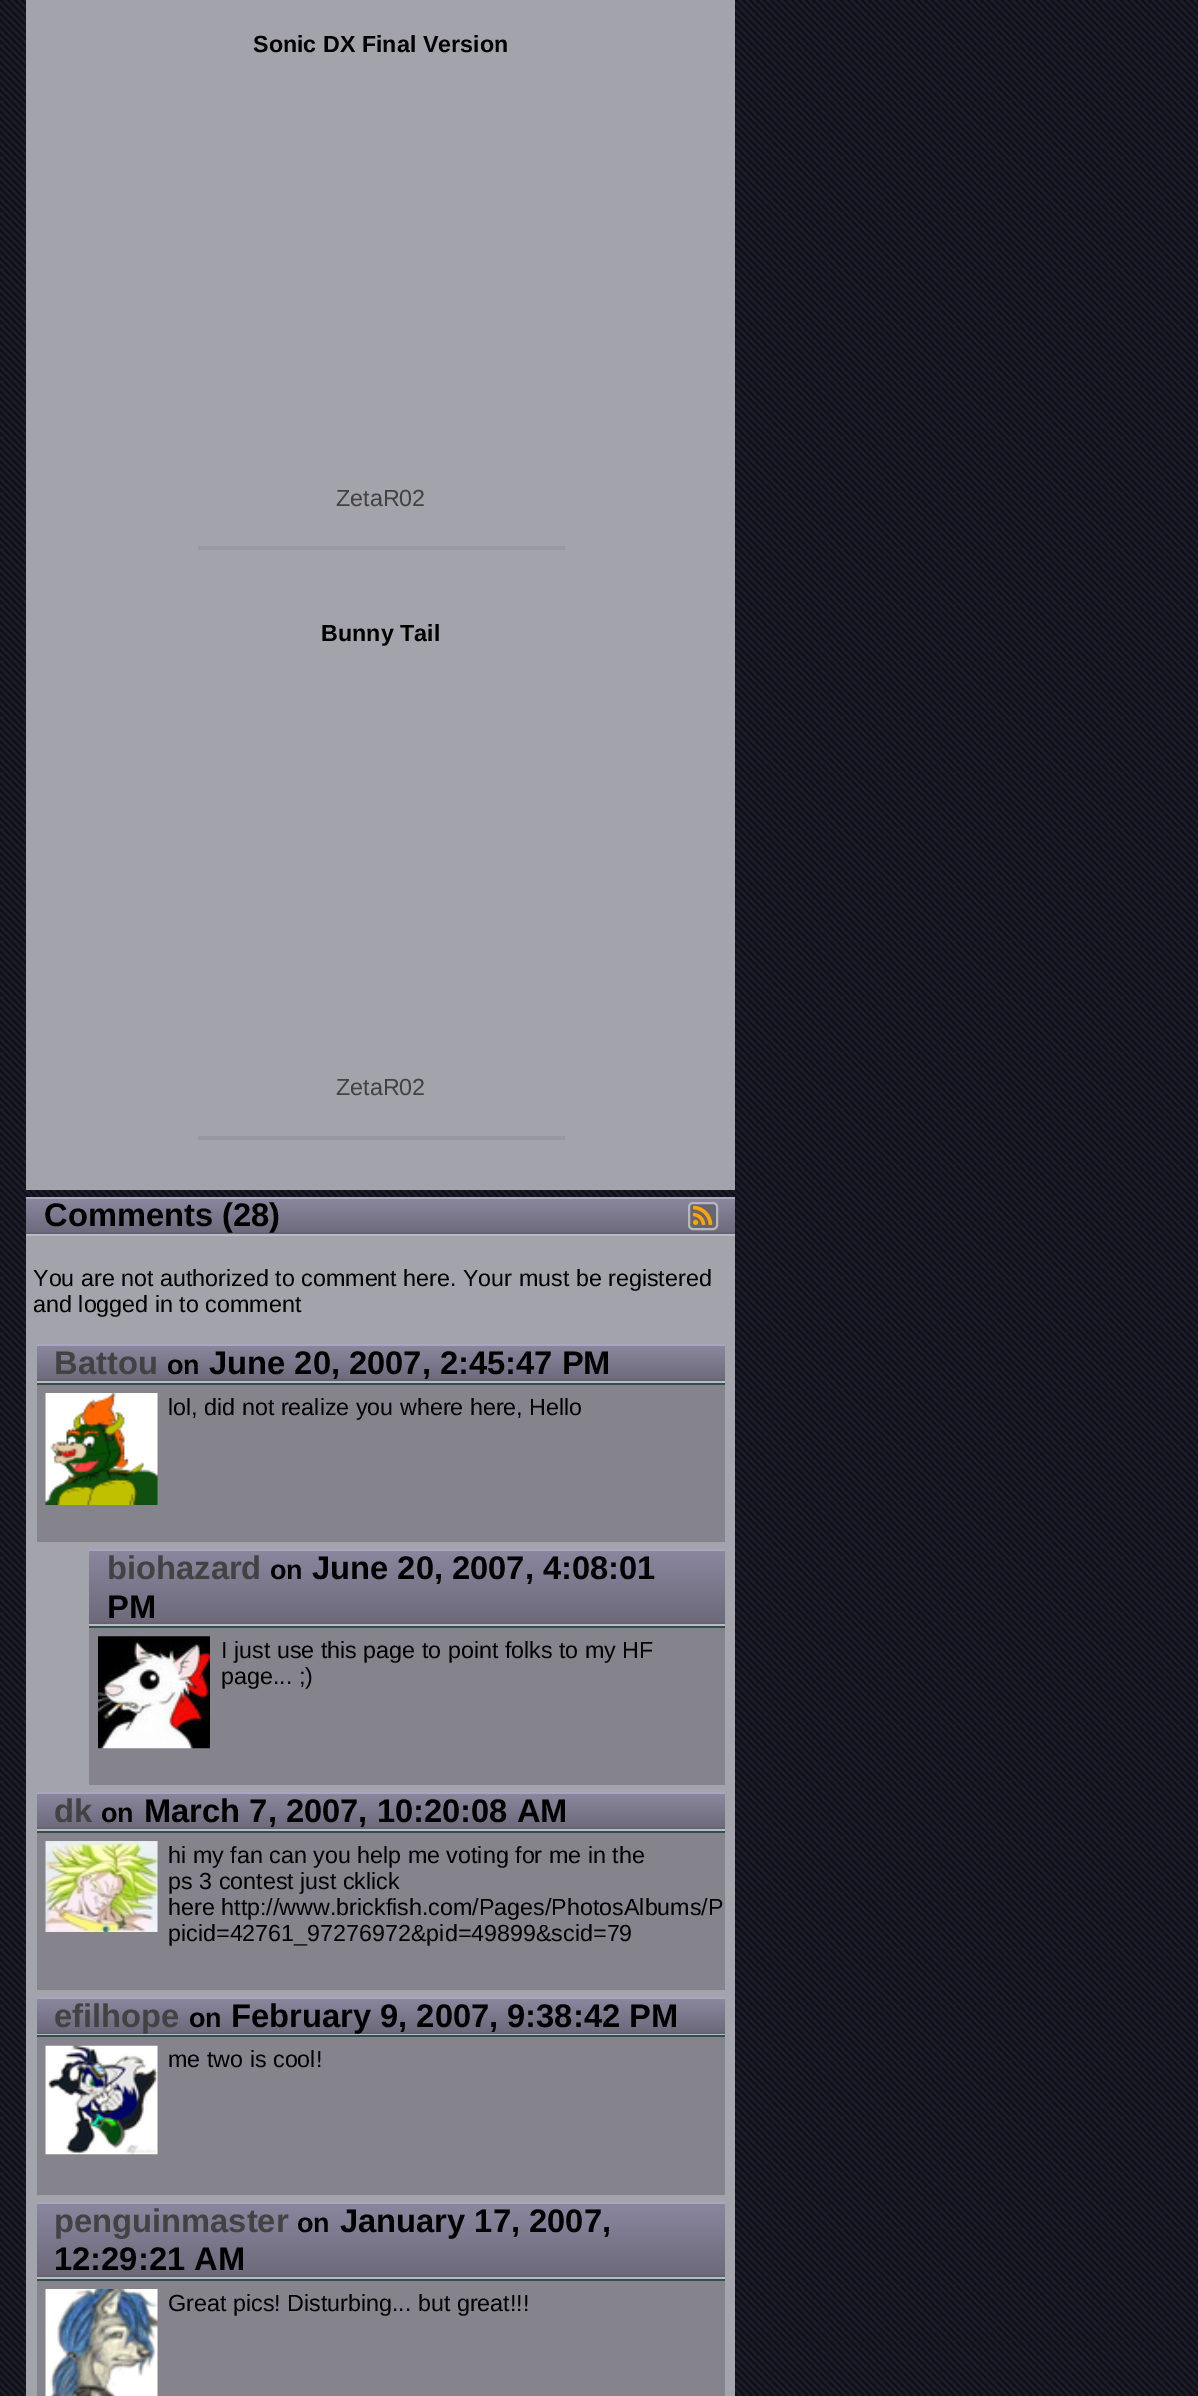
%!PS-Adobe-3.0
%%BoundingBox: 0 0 1198 2396
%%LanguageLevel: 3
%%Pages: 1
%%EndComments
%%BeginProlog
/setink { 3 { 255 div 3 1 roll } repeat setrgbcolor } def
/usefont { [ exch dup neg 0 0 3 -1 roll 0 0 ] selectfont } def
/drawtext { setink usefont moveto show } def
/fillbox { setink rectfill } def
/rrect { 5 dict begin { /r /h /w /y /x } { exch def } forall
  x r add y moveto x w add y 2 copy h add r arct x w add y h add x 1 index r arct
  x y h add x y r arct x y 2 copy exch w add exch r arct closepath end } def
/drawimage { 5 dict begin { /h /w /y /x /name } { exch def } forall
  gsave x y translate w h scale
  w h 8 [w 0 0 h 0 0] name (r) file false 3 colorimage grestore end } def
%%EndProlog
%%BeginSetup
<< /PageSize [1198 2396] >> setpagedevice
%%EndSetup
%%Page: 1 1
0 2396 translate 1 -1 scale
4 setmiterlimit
0 0 1198 2396 255 255 255 fillbox
(assets/img1.rgb) 0 0 1198 2396 drawimage
26 0 709 1190 163 163 171 fillbox
198 546 367 4 151 153 162 fillbox
(Sonic DX Final Version) 253 52 /LiberationSans-Bold 23.3 0 0 0 drawtext
(ZetaR02) 336 506 /LiberationSans-Regular 23.3 66 66 66 drawtext
198 1136 367 4 151 153 162 fillbox
(Bunny Tail) 321 641 /LiberationSans-Bold 23.3 0 0 0 drawtext
(ZetaR02) 336 1095 /LiberationSans-Regular 23.3 66 66 66 drawtext
gsave 26 1199 moveto 735 1199 lineto 735 1232 lineto 26 1232 lineto closepath clip newpath
<< /ShadingType 2 /ColorSpace /DeviceRGB /Coords [381 1197 381 1236] /Extend [true true] /Function << /FunctionType 3 /Domain [0 1] /Functions [<< /FunctionType 2 /Domain [0 1] /C0 [0.545 0.529 0.62] /C1 [0.545 0.529 0.62] /N 1 >> << /FunctionType 2 /Domain [0 1] /C0 [0.545 0.529 0.62] /C1 [0.42 0.408 0.475] /N 1 >>] /Bounds [0.01] /Encode [0 1 0 1] >> >> shfill grestore
26 1197 709 2 170 166 192 fillbox
26 1232 709 2 102 99 118 fillbox
26 1234 709 2 186 185 190 fillbox
(Comments \(28\)) 44 1226 /LiberationSans-Bold 32.7 0 0 0 drawtext
103 101 115 setink
689 1203 28 26 4 rrect gsave fill grestore
183 182 187 setink
2 setlinewidth
stroke
(assets/img2.rgb) 693 1205 20 20 drawimage
26 1236 709 1160 163 163 171 fillbox
(You are not authorized to comment here. Your must be registered) 33 1286 /LiberationSans-Regular 23.3 0 0 0 drawtext
(and logged in to comment) 33 1312 /LiberationSans-Regular 23.3 0 0 0 drawtext
gsave 37 1346 moveto 725 1346 lineto 725 1379 lineto 37 1379 lineto closepath clip newpath
<< /ShadingType 2 /ColorSpace /DeviceRGB /Coords [381 1344 381 1383] /Extend [true true] /Function << /FunctionType 3 /Domain [0 1] /Functions [<< /FunctionType 2 /Domain [0 1] /C0 [0.545 0.529 0.62] /C1 [0.545 0.529 0.62] /N 1 >> << /FunctionType 2 /Domain [0 1] /C0 [0.545 0.529 0.62] /C1 [0.42 0.408 0.475] /N 1 >>] /Bounds [0.01] /Encode [0 1 0 1] >> >> shfill grestore
37 1344 688 2 170 166 192 fillbox
37 1379 688 2 102 99 118 fillbox
37 1381 688 2 186 185 190 fillbox
(Battou) 54 1374 /LiberationSans-Bold 32.7 66 66 66 drawtext
(on) 167 1374 /LiberationSans-Bold 27 0 0 0 drawtext
(June 20, 2007, 2:45:47 PM) 209 1374 /LiberationSans-Bold 32.7 0 0 0 drawtext
37 1385 688 157 133 132 141 fillbox
37 1383 688 2 47 79 79 fillbox
(assets/img3.rgb) 45 1393 113 112 drawimage
(lol, did not realize you where here, Hello) 168 1415 /LiberationSans-Regular 23.3 0 0 0 drawtext
gsave 89 1551 moveto 725 1551 lineto 725 1622 lineto 89 1622 lineto closepath clip newpath
<< /ShadingType 2 /ColorSpace /DeviceRGB /Coords [407 1549 407 1626] /Extend [true true] /Function << /FunctionType 3 /Domain [0 1] /Functions [<< /FunctionType 2 /Domain [0 1] /C0 [0.545 0.529 0.62] /C1 [0.545 0.529 0.62] /N 1 >> << /FunctionType 2 /Domain [0 1] /C0 [0.545 0.529 0.62] /C1 [0.42 0.408 0.475] /N 1 >>] /Bounds [0.01] /Encode [0 1 0 1] >> >> shfill grestore
89 1549 636 2 170 166 192 fillbox
89 1622 636 2 102 99 118 fillbox
89 1624 636 2 186 185 190 fillbox
(biohazard) 107 1579 /LiberationSans-Bold 32.7 66 66 66 drawtext
(on) 270 1579 /LiberationSans-Bold 27 0 0 0 drawtext
(June 20, 2007, 4:08:01) 312 1579 /LiberationSans-Bold 32.7 0 0 0 drawtext
(PM) 107 1618 /LiberationSans-Bold 32.7 0 0 0 drawtext
89 1628 636 157 133 132 141 fillbox
89 1626 636 2 47 79 79 fillbox
(assets/img4.rgb) 98 1636 112 113 drawimage
(I just use this page to point folks to my HF) 221 1658 /LiberationSans-Regular 23.3 0 0 0 drawtext
(page... ;\)) 221 1684 /LiberationSans-Regular 23.3 0 0 0 drawtext
gsave 37 1794 moveto 725 1794 lineto 725 1827 lineto 37 1827 lineto closepath clip newpath
<< /ShadingType 2 /ColorSpace /DeviceRGB /Coords [381 1792 381 1831] /Extend [true true] /Function << /FunctionType 3 /Domain [0 1] /Functions [<< /FunctionType 2 /Domain [0 1] /C0 [0.545 0.529 0.62] /C1 [0.545 0.529 0.62] /N 1 >> << /FunctionType 2 /Domain [0 1] /C0 [0.545 0.529 0.62] /C1 [0.42 0.408 0.475] /N 1 >>] /Bounds [0.01] /Encode [0 1 0 1] >> >> shfill grestore
37 1792 688 2 170 166 192 fillbox
37 1827 688 2 102 99 118 fillbox
37 1829 688 2 186 185 190 fillbox
(dk) 54 1822 /LiberationSans-Bold 32.7 66 66 66 drawtext
(on) 101 1822 /LiberationSans-Bold 27 0 0 0 drawtext
(March 7, 2007, 10:20:08 AM) 144 1822 /LiberationSans-Bold 32.7 0 0 0 drawtext
37 1833 688 157 133 132 141 fillbox
37 1831 688 2 47 79 79 fillbox
(assets/img5.rgb) 45 1841 113 91 drawimage
(hi my fan can you help me voting for me in the) 168 1863 /LiberationSans-Regular 23.3 0 0 0 drawtext
(ps 3 contest just cklick) 168 1889 /LiberationSans-Regular 23.3 0 0 0 drawtext
(here http://www.brickfish.com/Pages/PhotosAlbums/P) 168 1915 /LiberationSans-Regular 23.3 0 0 0 drawtext
(picid=42761_97276972&pid=49899&scid=79) 168 1941 /LiberationSans-Regular 23.3 0 0 0 drawtext
gsave 37 1999 moveto 725 1999 lineto 725 2032 lineto 37 2032 lineto closepath clip newpath
<< /ShadingType 2 /ColorSpace /DeviceRGB /Coords [381 1997 381 2035] /Extend [true true] /Function << /FunctionType 3 /Domain [0 1] /Functions [<< /FunctionType 2 /Domain [0 1] /C0 [0.545 0.529 0.62] /C1 [0.545 0.529 0.62] /N 1 >> << /FunctionType 2 /Domain [0 1] /C0 [0.545 0.529 0.62] /C1 [0.42 0.408 0.475] /N 1 >>] /Bounds [0.01] /Encode [0 1 0 1] >> >> shfill grestore
37 1997 688 2 170 166 192 fillbox
37 2032 688 2 102 99 118 fillbox
37 2034 688 1 186 185 190 fillbox
(efilhope) 54 2027 /LiberationSans-Bold 32.7 66 66 66 drawtext
(on) 189 2027 /LiberationSans-Bold 27 0 0 0 drawtext
(February 9, 2007, 9:38:42 PM) 231 2027 /LiberationSans-Bold 32.7 0 0 0 drawtext
37 2037 688 158 133 132 141 fillbox
37 2035 688 2 47 79 79 fillbox
(assets/img6.rgb) 45 2045 113 110 drawimage
(me two is cool!) 168 2067 /LiberationSans-Regular 23.3 0 0 0 drawtext
gsave 37 2204 moveto 725 2204 lineto 725 2275 lineto 37 2275 lineto closepath clip newpath
<< /ShadingType 2 /ColorSpace /DeviceRGB /Coords [381 2202 381 2279] /Extend [true true] /Function << /FunctionType 3 /Domain [0 1] /Functions [<< /FunctionType 2 /Domain [0 1] /C0 [0.545 0.529 0.62] /C1 [0.545 0.529 0.62] /N 1 >> << /FunctionType 2 /Domain [0 1] /C0 [0.545 0.529 0.62] /C1 [0.42 0.408 0.475] /N 1 >>] /Bounds [0.01] /Encode [0 1 0 1] >> >> shfill grestore
37 2202 688 2 170 166 192 fillbox
37 2275 688 2 102 99 118 fillbox
37 2277 688 2 186 185 190 fillbox
(penguinmaster) 54 2232 /LiberationSans-Bold 32.7 66 66 66 drawtext
(on) 297 2232 /LiberationSans-Bold 27 0 0 0 drawtext
(January 17, 2007,) 340 2232 /LiberationSans-Bold 32.7 0 0 0 drawtext
(12:29:21 AM) 54 2270 /LiberationSans-Bold 32.7 0 0 0 drawtext
37 2281 688 115 133 132 141 fillbox
37 2279 688 2 47 79 79 fillbox
(assets/img7.rgb) 45 2289 113 107 drawimage
(Great pics! Disturbing... but great!!!) 168 2311 /LiberationSans-Regular 23.3 0 0 0 drawtext
showpage
%%EOF
